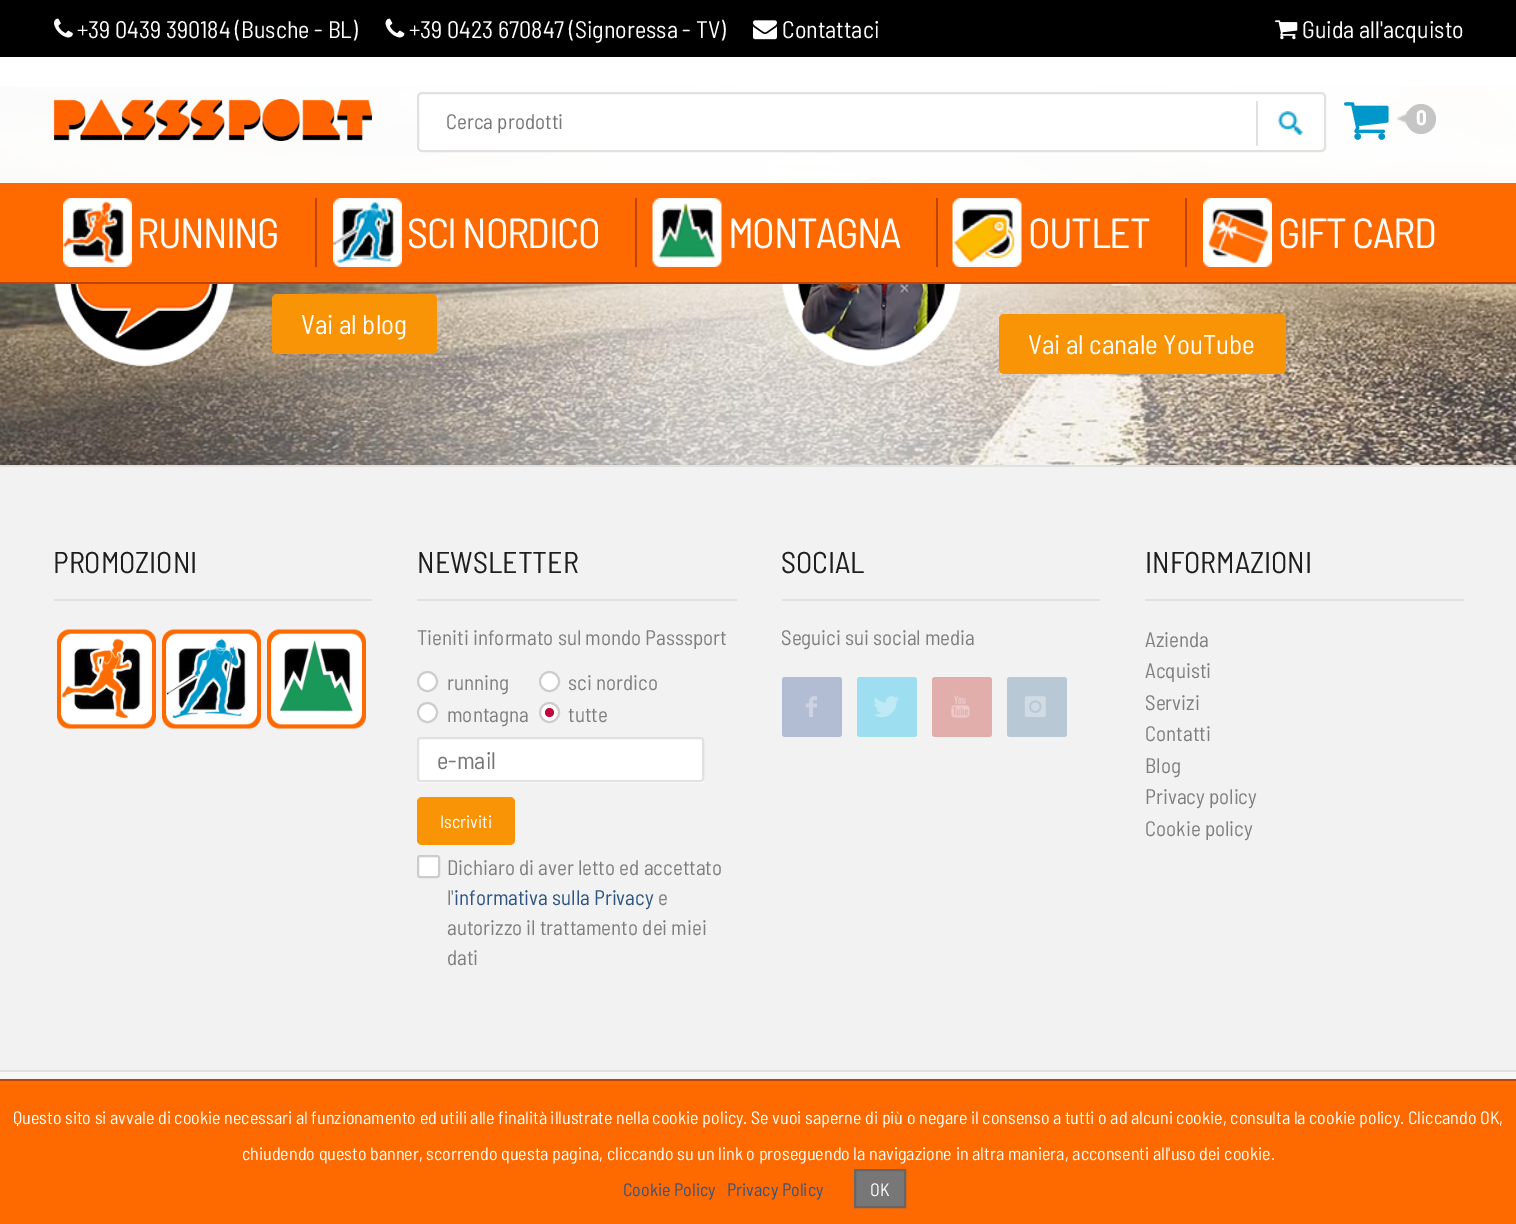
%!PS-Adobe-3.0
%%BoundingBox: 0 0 1516 1224
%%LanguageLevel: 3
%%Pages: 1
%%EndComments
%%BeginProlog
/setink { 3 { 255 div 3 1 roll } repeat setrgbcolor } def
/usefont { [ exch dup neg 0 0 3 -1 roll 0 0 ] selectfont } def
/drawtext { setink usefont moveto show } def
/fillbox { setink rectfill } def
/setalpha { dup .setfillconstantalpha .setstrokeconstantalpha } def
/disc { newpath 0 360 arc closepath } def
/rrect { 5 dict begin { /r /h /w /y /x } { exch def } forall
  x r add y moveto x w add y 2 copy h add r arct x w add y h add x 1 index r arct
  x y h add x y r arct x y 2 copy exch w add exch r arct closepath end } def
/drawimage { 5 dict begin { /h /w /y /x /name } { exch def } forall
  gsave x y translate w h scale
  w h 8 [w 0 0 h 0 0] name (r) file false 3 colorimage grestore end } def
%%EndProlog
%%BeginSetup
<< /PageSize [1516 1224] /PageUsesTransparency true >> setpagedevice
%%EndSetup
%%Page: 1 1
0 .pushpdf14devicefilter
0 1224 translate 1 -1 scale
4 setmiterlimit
0 0 1516 1224 247 247 247 fillbox
0 0 1516 57 0 0 0 fillbox
(assets/img1.rgb) 54 18 19 20 drawimage
(+39 0439 390184 \(Busche - BL\)) 77 38 /BarlowSemiCondensed-Regular 24 255 255 255 drawtext
(assets/img2.rgb) 385 18 20 20 drawimage
(+39 0423 670847 \(Signoressa - TV\)) 409 38 /BarlowSemiCondensed-Regular 24 255 255 255 drawtext
(assets/img3.rgb) 753 20 24 20 drawimage
(Contattaci) 782 38 /BarlowSemiCondensed-Regular 24 255 255 255 drawtext
(assets/img4.rgb) 1275 20 23 20 drawimage
(Guida all'acquisto) 1302 38 /BarlowSemiCondensed-Regular 24 255 255 255 drawtext
(assets/img14.rgb) 0 86 1516 379 drawimage
(assets/img16.rgb) 781 176 181 191 drawimage
0.97 setalpha
0 57 1516 126 255 255 255 fillbox
1 setalpha
(assets/img5.rgb) 53 99 319 42 drawimage
418 93 907 58 4 rrect gsave fill grestore
225 225 225 setink
2 setlinewidth
stroke
(Cerca prodotti) 446 129 /BarlowSemiCondensed-Regular 21 119 119 119 drawtext
1256 101 2 45 225 225 225 fillbox
(assets/img6.rgb) 1278 111 26 24 drawimage
(assets/img7.rgb) 1344 102 45 38 drawimage
197 197 197 setink
1421 119 15 disc fill
(assets/img8.rgb) 1396 111 12 15 drawimage
(0) 1416 125 /BarlowSemiCondensed-Bold 21 255 255 255 drawtext
0 183 1516 99 254 106 0 fillbox
0 282 1516 2 188 68 7 fillbox
(assets/img9.rgb) 63 198 69 69 drawimage
/BarlowSemiCondensed-Regular 42 usefont
255 255 255 setink
137 248 moveto -1.5 0 (RUNNING) ashow
315 198 2 69 188 68 7 fillbox
(assets/img10.rgb) 333 198 69 69 drawimage
255 255 255 setink
407 248 moveto -1.5 0 (SCI NORDICO) ashow
635 198 2 69 188 68 7 fillbox
(assets/img11.rgb) 652 198 70 69 drawimage
255 255 255 setink
728 248 moveto -1.5 0 (MONTAGNA) ashow
936 198 2 69 188 68 7 fillbox
(assets/img12.rgb) 952 198 70 69 drawimage
255 255 255 setink
1028 248 moveto -1.5 0 (OUTLET) ashow
1185 198 2 69 188 68 7 fillbox
(assets/img13.rgb) 1203 198 69 69 drawimage
255 255 255 setink
1278 248 moveto -1.5 0 (GIFT CARD) ashow
0 465 1516 2 225 225 225 fillbox
(assets/img15.rgb) 54 284 180 83 drawimage
248 148 6 setink
272 294 165 60 5 rrect fill
(Vai al blog) 301 334 /BarlowSemiCondensed-Regular 27 255 255 255 drawtext
248 148 6 setink
999 314 287 60 5 rrect fill
(Vai al canale YouTube) 1028 354 /BarlowSemiCondensed-Regular 27 255 255 255 drawtext
0 467 1516 603 242 242 242 fillbox
54 599 318 2 225 225 225 fillbox
(PROMOZIONI) 53 573 /BarlowSemiCondensed-Regular 30 30 30 30 drawtext
(assets/img17.rgb) 57 629 99 100 drawimage
(assets/img18.rgb) 162 629 99 100 drawimage
(assets/img19.rgb) 267 629 99 100 drawimage
417 599 320 2 225 225 225 fillbox
(NEWSLETTER) 417 573 /BarlowSemiCondensed-Regular 30 30 30 30 drawtext
(Tieniti informato sul mondo Passsport) 417 645 /BarlowSemiCondensed-Regular 21 127 127 127 drawtext
255 255 255 setink
427.5 681.5 9.5 disc gsave fill grestore
204 204 204 setink
stroke
(running) 447 690 /BarlowSemiCondensed-Regular 21 127 127 127 drawtext
255 255 255 setink
549.5 681.5 9.5 disc gsave fill grestore
204 204 204 setink
stroke
(sci nordico) 568 690 /BarlowSemiCondensed-Regular 21 127 127 127 drawtext
255 255 255 setink
427.5 712.5 9.5 disc gsave fill grestore
204 204 204 setink
stroke
(montagna) 447 722 /BarlowSemiCondensed-Regular 21 127 127 127 drawtext
255 255 255 setink
549.5 712.5 9.5 disc gsave fill grestore
204 204 204 setink
stroke
193 8 65 setink
549.5 712.5 4.5 disc fill
(tutte) 568 722 /BarlowSemiCondensed-Regular 21 127 127 127 drawtext
255 255 255 setink
417 778 moveto 417 780 lineto 417 782 418 783 420 783 curveto 701 783 lineto 703 783 704 782 704 780 curveto 704 741 lineto 703 739 lineto 704 778 lineto 704 780 702 782 700 782 curveto 420 782 lineto 418 782 417 780 417 778 curveto closepath fill
418 738 285 43 2 rrect gsave fill grestore
225 225 225 setink
stroke
(e-mail) 437 769 /BarlowSemiCondensed-Regular 24 119 119 119 drawtext
248 148 6 setink
417 797 98 48 5 rrect fill
(Iscriviti) 440 828 /BarlowSemiCondensed-Regular 18 255 255 255 drawtext
418 856 21 21 2 rrect gsave fill grestore
204 204 204 setink
stroke
(Dichiaro di aver letto ed accettato) 447 875 /BarlowSemiCondensed-Regular 21 127 127 127 drawtext
(l') 447 905 /BarlowSemiCondensed-Regular 21 127 127 127 drawtext
(informativa sulla Privacy) 454 905 /BarlowSemiCondensed-Regular 21 46 84 129 drawtext
(e) 658 905 /BarlowSemiCondensed-Regular 21 127 127 127 drawtext
(autorizzo il trattamento dei miei) 447 935 /BarlowSemiCondensed-Regular 21 127 127 127 drawtext
(dati) 447 965 /BarlowSemiCondensed-Regular 21 127 127 127 drawtext
782 599 318 2 225 225 225 fillbox
(SOCIAL) 781 573 /BarlowSemiCondensed-Regular 30 30 30 30 drawtext
(Seguici sui social media) 781 645 /BarlowSemiCondensed-Regular 21 127 127 127 drawtext
178 188 210 setink
782 677 60 60 3 rrect fill
(assets/img20.rgb) 805 696 12 21 drawimage
157 223 240 setink
857 677 60 60 3 rrect fill
(assets/img21.rgb) 874 696 25 22 drawimage
226 174 172 setink
932 677 60 60 3 rrect fill
(assets/img22.rgb) 951 695 19 23 drawimage
184 200 213 setink
1007 677 60 60 3 rrect fill
(assets/img23.rgb) 1024 696 22 21 drawimage
1145 599 319 2 225 225 225 fillbox
(INFORMAZIONI) 1145 573 /BarlowSemiCondensed-Regular 30 30 30 30 drawtext
(Azienda) 1145 647 /BarlowSemiCondensed-Regular 21 127 127 127 drawtext
(Acquisti) 1145 678 /BarlowSemiCondensed-Regular 21 127 127 127 drawtext
(Servizi) 1145 710 /BarlowSemiCondensed-Regular 21 127 127 127 drawtext
(Contatti) 1145 741 /BarlowSemiCondensed-Regular 21 127 127 127 drawtext
(Blog) 1145 773 /BarlowSemiCondensed-Regular 21 127 127 127 drawtext
(Privacy policy) 1145 804 /BarlowSemiCondensed-Regular 21 127 127 127 drawtext
(Cookie policy) 1145 836 /BarlowSemiCondensed-Regular 21 127 127 127 drawtext
0 1070 1516 2 225 225 225 fillbox
0 1081 1516 143 254 106 0 fillbox
0 1079 1516 2 188 68 7 fillbox
(Questo sito si avvale di cookie necessari al funzionamento ed utili alle finalità illustrate nella cookie policy. Se vuoi saperne di più o negare il consenso a tutti o ad alcuni cookie, consulta la cookie policy. Cliccando OK,) 13 1124 /BarlowSemiCondensed-Regular 18 255 255 255 drawtext
(chiudendo questo banner, scorrendo questa pagina, cliccando su un link o proseguendo la navigazione in altra maniera, acconsenti all'uso dei cookie.) 242 1160 /BarlowSemiCondensed-Regular 18 255 255 255 drawtext
(Cookie Policy) 623 1196 /BarlowSemiCondensed-Regular 18 46 84 129 drawtext
(Privacy Policy) 727 1196 /BarlowSemiCondensed-Regular 18 46 84 129 drawtext
119 119 119 setink
855 1170 moveto 905 1170 lineto 905 1207 lineto 855 1207 lineto closepath gsave fill grestore
102 102 102 setink
stroke
(OK) 870 1196 /BarlowSemiCondensed-Regular 18 255 255 255 drawtext
.poppdf14devicefilter showpage
%%EOF
